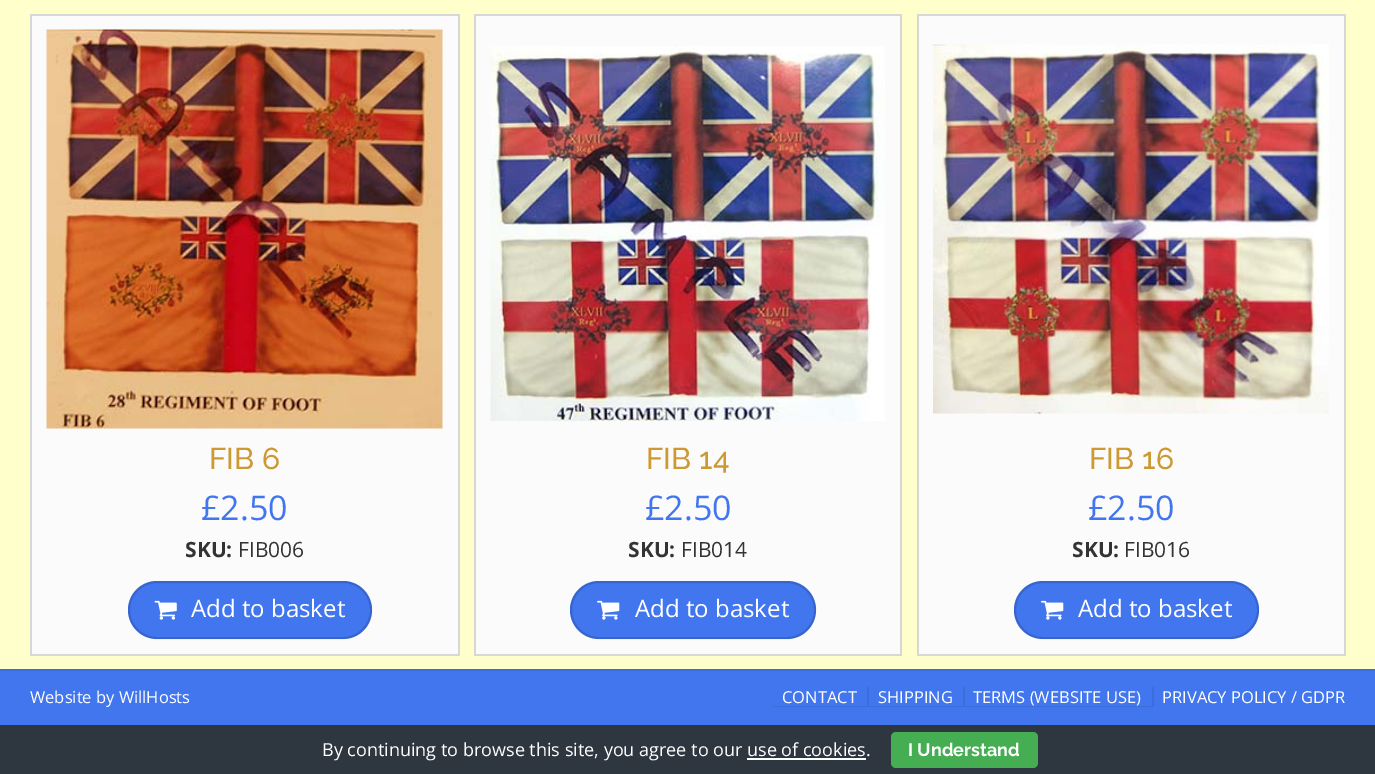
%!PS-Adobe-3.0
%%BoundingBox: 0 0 1375 774
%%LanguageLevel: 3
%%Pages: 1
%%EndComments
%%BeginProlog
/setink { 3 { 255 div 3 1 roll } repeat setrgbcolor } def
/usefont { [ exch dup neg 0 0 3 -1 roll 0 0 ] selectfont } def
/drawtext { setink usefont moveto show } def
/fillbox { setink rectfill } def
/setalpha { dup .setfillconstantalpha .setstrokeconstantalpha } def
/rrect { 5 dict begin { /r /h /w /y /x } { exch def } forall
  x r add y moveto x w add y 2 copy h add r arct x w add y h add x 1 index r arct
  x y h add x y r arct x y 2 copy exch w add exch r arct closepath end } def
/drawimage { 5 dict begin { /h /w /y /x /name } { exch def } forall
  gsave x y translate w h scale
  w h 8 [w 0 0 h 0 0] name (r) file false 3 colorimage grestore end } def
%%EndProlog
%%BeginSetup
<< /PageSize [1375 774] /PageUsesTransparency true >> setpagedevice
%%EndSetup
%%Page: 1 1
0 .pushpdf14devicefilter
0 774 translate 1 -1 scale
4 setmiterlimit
0 0 1375 774 255 255 204 fillbox
32 16 426 638 251 251 251 fillbox
30 14 429 2 215 215 215 fillbox
458 14 2 642 215 215 215 fillbox
30 14 2 567 215 215 215 fillbox
(assets/img1.rgb) 46 29 397 400 drawimage
476 16 424 638 251 251 251 fillbox
474 14 428 2 215 215 215 fillbox
900 14 2 642 215 215 215 fillbox
474 14 2 567 215 215 215 fillbox
(assets/img2.rgb) 490 46 395 375 drawimage
919 16 425 638 251 251 251 fillbox
917 14 429 2 215 215 215 fillbox
1344 14 2 642 215 215 215 fillbox
917 14 2 567 215 215 215 fillbox
(assets/img3.rgb) 933 44 396 370 drawimage
(FIB 6) 209 469 /Raleway-Medium 30 204 153 51 drawtext
(FIB 14) 646 469 /Raleway-Medium 30 204 153 51 drawtext
(FIB 16) 1089 469 /Raleway-Medium 30 204 153 51 drawtext
(£2.50) 201 520 /OpenSans-Regular 34 65 118 239 drawtext
(£2.50) 645 520 /OpenSans-Regular 34 65 118 239 drawtext
(£2.50) 1088 520 /OpenSans-Regular 34 65 118 239 drawtext
(SKU:) 185 557 /OpenSans-Bold 21 51 51 51 drawtext
(FIB006) 238 557 /OpenSans-Regular 21 51 51 51 drawtext
(SKU:) 628 557 /OpenSans-Bold 21 51 51 51 drawtext
(FIB014) 681 557 /OpenSans-Regular 21 51 51 51 drawtext
(SKU:) 1072 557 /OpenSans-Bold 21 51 51 51 drawtext
(FIB016) 1124 557 /OpenSans-Regular 21 51 51 51 drawtext
30 654 429 2 215 215 215 fillbox
30 581 2 75 215 215 215 fillbox
65 118 239 setink
128 581 244 58 29 rrect fill
0.14 setalpha
0 0 0 setink
2 setlinewidth
129 582 242 56 28 rrect stroke
1 setalpha
(assets/img4.rgb) 154 600 23 20 drawimage
(Add to basket) 191 617 /OpenSans-Regular 24 255 255 255 drawtext
474 654 428 2 215 215 215 fillbox
474 581 2 75 215 215 215 fillbox
65 118 239 setink
570 581 246 58 29 rrect fill
0.14 setalpha
0 0 0 setink
571 582 244 56 28 rrect stroke
1 setalpha
(assets/img5.rgb) 597 600 23 20 drawimage
(Add to basket) 635 617 /OpenSans-Regular 24 255 255 255 drawtext
917 654 429 2 215 215 215 fillbox
917 581 2 75 215 215 215 fillbox
65 118 239 setink
1014 581 245 58 29 rrect fill
0.14 setalpha
0 0 0 setink
1015 582 243 56 28 rrect stroke
1 setalpha
(assets/img5.rgb) 1041 600 23 20 drawimage
(Add to basket) 1078 617 /OpenSans-Regular 24 255 255 255 drawtext
0 671 1375 54 65 118 239 fillbox
0 669 1375 2 60 109 220 fillbox
(Website by WillHosts) 30 703 /OpenSans-Regular 16.5 255 255 255 drawtext
60 109 220 setink
773 706 moveto 773 707 lineto 869 707 lineto 869 687 lineto 867 687 lineto 867 706 lineto closepath fill
(CONTACT) 782 703 /OpenSans-Regular 16.5 255 255 255 drawtext
60 109 220 setink
869 706 moveto 869 707 lineto 965 707 lineto 965 687 lineto 963 687 lineto 963 706 lineto closepath fill
(SHIPPING) 878 703 /OpenSans-Regular 16.5 255 255 255 drawtext
60 109 220 setink
965 706 moveto 965 707 lineto 1154 707 lineto 1154 687 lineto 1152 687 lineto 1152 706 lineto closepath fill
(TERMS \(WEBSITE USE\)) 973 703 /OpenSans-Regular 16.5 255 255 255 drawtext
(PRIVACY POLICY / GDPR) 1162 703 /OpenSans-Regular 16.5 255 255 255 drawtext
0 725 1375 49 46 54 63 fillbox
(By continuing to browse this site, you agree to our use of cookies.) 322 756 /OpenSans-Regular 18 255 255 255 drawtext
69 174 82 setink
891 732 147 36 5 rrect fill
(I Understand) 908 756 /Raleway-Bold 18 255 255 255 drawtext
747 758 119 2 255 255 255 fillbox
.poppdf14devicefilter showpage
%%EOF
